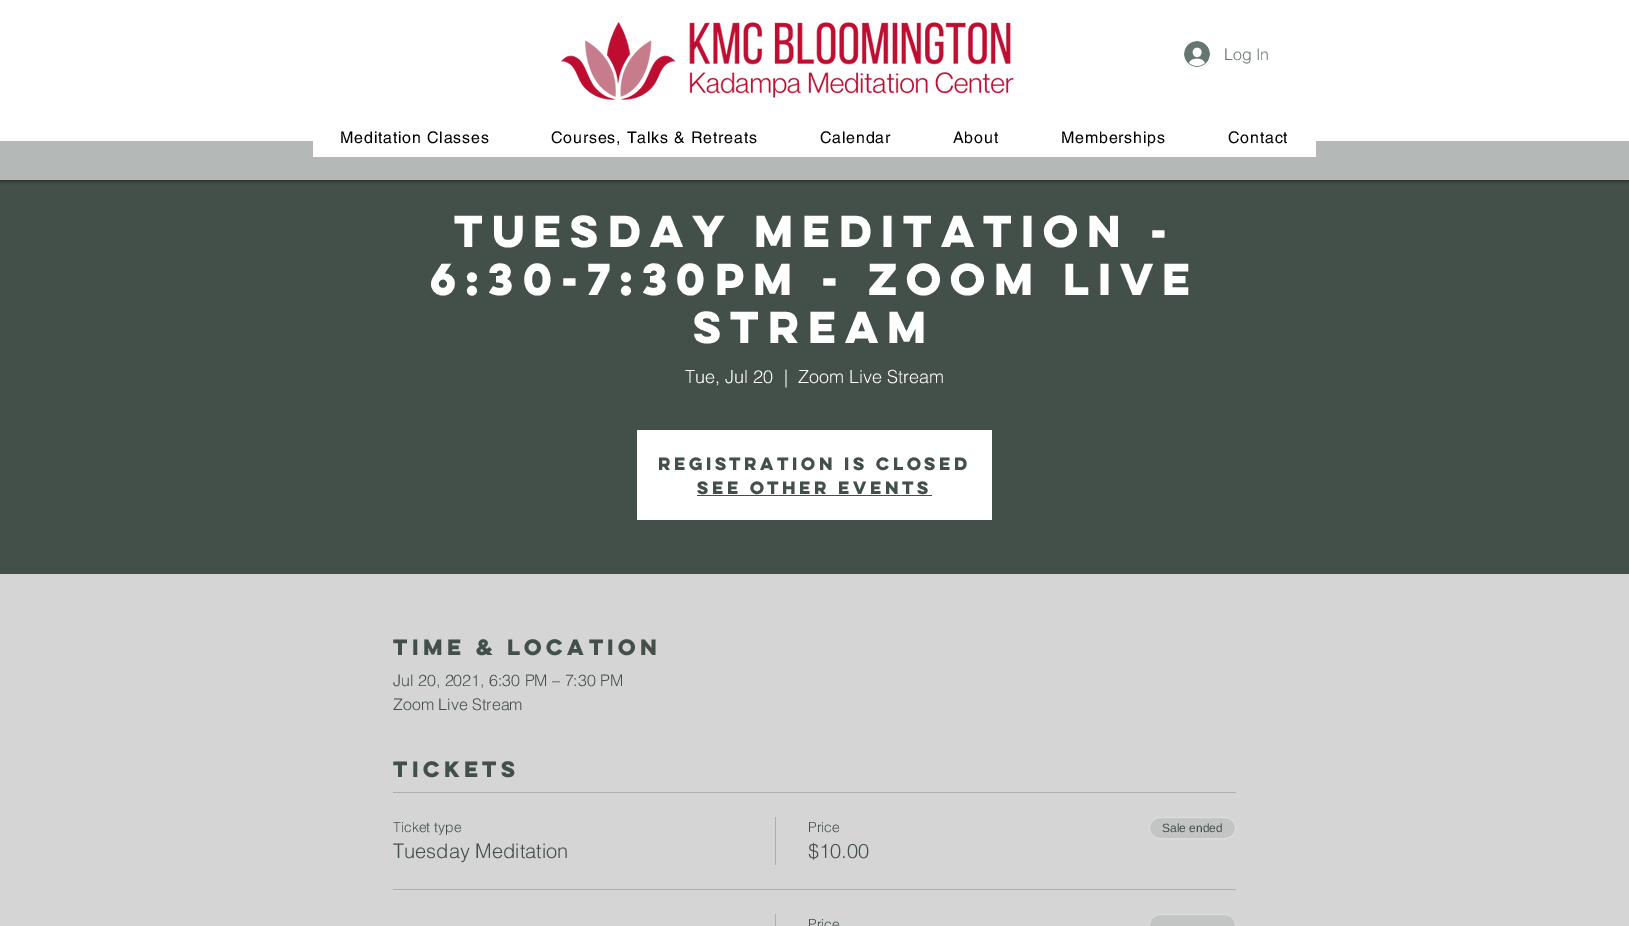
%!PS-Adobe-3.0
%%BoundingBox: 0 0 1629 926
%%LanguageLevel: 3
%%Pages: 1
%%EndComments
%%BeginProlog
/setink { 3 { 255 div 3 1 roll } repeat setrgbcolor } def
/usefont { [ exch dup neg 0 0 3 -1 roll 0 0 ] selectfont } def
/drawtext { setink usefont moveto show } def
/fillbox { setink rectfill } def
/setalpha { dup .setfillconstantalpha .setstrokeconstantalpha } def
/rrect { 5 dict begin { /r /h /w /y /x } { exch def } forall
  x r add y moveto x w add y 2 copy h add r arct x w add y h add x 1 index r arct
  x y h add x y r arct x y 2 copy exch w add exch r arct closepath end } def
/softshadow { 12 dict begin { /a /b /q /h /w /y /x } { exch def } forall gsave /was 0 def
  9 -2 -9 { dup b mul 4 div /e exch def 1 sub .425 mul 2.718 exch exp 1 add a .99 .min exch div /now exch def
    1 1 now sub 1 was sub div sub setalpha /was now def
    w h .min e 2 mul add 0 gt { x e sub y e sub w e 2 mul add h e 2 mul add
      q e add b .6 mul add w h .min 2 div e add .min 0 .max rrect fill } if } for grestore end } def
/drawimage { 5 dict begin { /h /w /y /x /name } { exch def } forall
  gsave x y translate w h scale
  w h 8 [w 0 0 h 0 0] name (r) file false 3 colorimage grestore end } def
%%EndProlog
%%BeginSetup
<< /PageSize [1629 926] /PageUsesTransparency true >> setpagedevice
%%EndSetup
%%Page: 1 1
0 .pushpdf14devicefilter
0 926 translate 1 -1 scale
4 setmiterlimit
0 0 1629 926 255 255 255 fillbox
0 180 1629 394 67 80 74 fillbox
0 141 1629 39 180 185 183 fillbox
gsave
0 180 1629 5 rectclip
0 0 0 setink
0 0 1629 180 0 2.5 0.7 softshadow
grestore
(assets/img1.rgb) 561 22 453 80 drawimage
(assets/img2.rgb) 1184 41 26 26 drawimage
(Log In) 1224 60 /helvetica-Light 16 100 120 111 drawtext
313 141 1003 16 255 255 255 fillbox
/helvetica-Regular 16 usefont
0 0 0 setink
340 143 moveto 0.8 0 (Meditation Classes) ashow
551 143 moveto 0.8 0 (Courses, Talks & Retreats) ashow
820 143 moveto 0.8 0 (Calendar) ashow
953 143 moveto 0.8 0 (About) ashow
1061 143 moveto 0.8 0 (Memberships) ashow
1228 143 moveto 0.8 0 (Contact) ashow
(TUESDAY Meditation -) 454 247 /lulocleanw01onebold-Bold 40 255 255 255 drawtext
(6:30-7:30PM - ZOOM LIVE) 430 295 /lulocleanw01onebold-Bold 40 255 255 255 drawtext
(STREAM) 693 343 /lulocleanw01onebold-Bold 40 255 255 255 drawtext
(Tue, Jul 20) 685 383 /helvetica-Light 18 255 255 255 drawtext
(|) 784 383 /helvetica-Light 18 255 255 255 drawtext
(Zoom Live Stream) 798 383 /helvetica-Light 18 255 255 255 drawtext
637 430 355 90 255 255 255 fillbox
(Registration is Closed) 658 470 /lulocleanw01onebold-Bold 16 67 80 74 drawtext
(See other events) 697 494 /lulocleanw01onebold-Bold 16 67 80 74 drawtext
697 495 235 1 67 80 74 fillbox
0 574 1629 352 213 213 213 fillbox
(Time & Location) 393 655 /lulocleanw01onebold-Bold 20 67 80 74 drawtext
(Jul 20, 2021, 6:30 PM – 7:30 PM) 393 686 /helvetica-Light 16 67 80 74 drawtext
(Zoom Live Stream) 393 710 /helvetica-Light 16 67 80 74 drawtext
(Tickets) 393 777 /lulocleanw01onebold-Bold 20 67 80 74 drawtext
393 792 843 1 175 175 175 fillbox
393 889 843 1 175 175 175 fillbox
(Ticket type) 393 832 /helvetica-Light 14 67 80 74 drawtext
(Tuesday Meditation) 393 858 /helvetica-Light 20 67 80 74 drawtext
775 817 1 48 175 175 175 fillbox
(Price) 808 832 /helvetica-Light 14 67 80 74 drawtext
($10.00) 808 858 /helvetica-Light 20 67 80 74 drawtext
195 197 196 setink
1149 817 87 22 11 rrect fill
0.4 setalpha
255 255 255 setink
1149.5 817.5 86 21 10.5 rrect stroke
1 setalpha
(Sale ended) 1162 832 /LiberationSans-Regular 12 67 80 74 drawtext
775 914 1 12 175 175 175 fillbox
(Price) 808 929 /helvetica-Light 14 67 80 74 drawtext
195 197 196 setink
1149 914 87 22 11 rrect fill
0.4 setalpha
255 255 255 setink
1149.5 914.5 86 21 10.5 rrect stroke
.poppdf14devicefilter showpage
%%EOF
